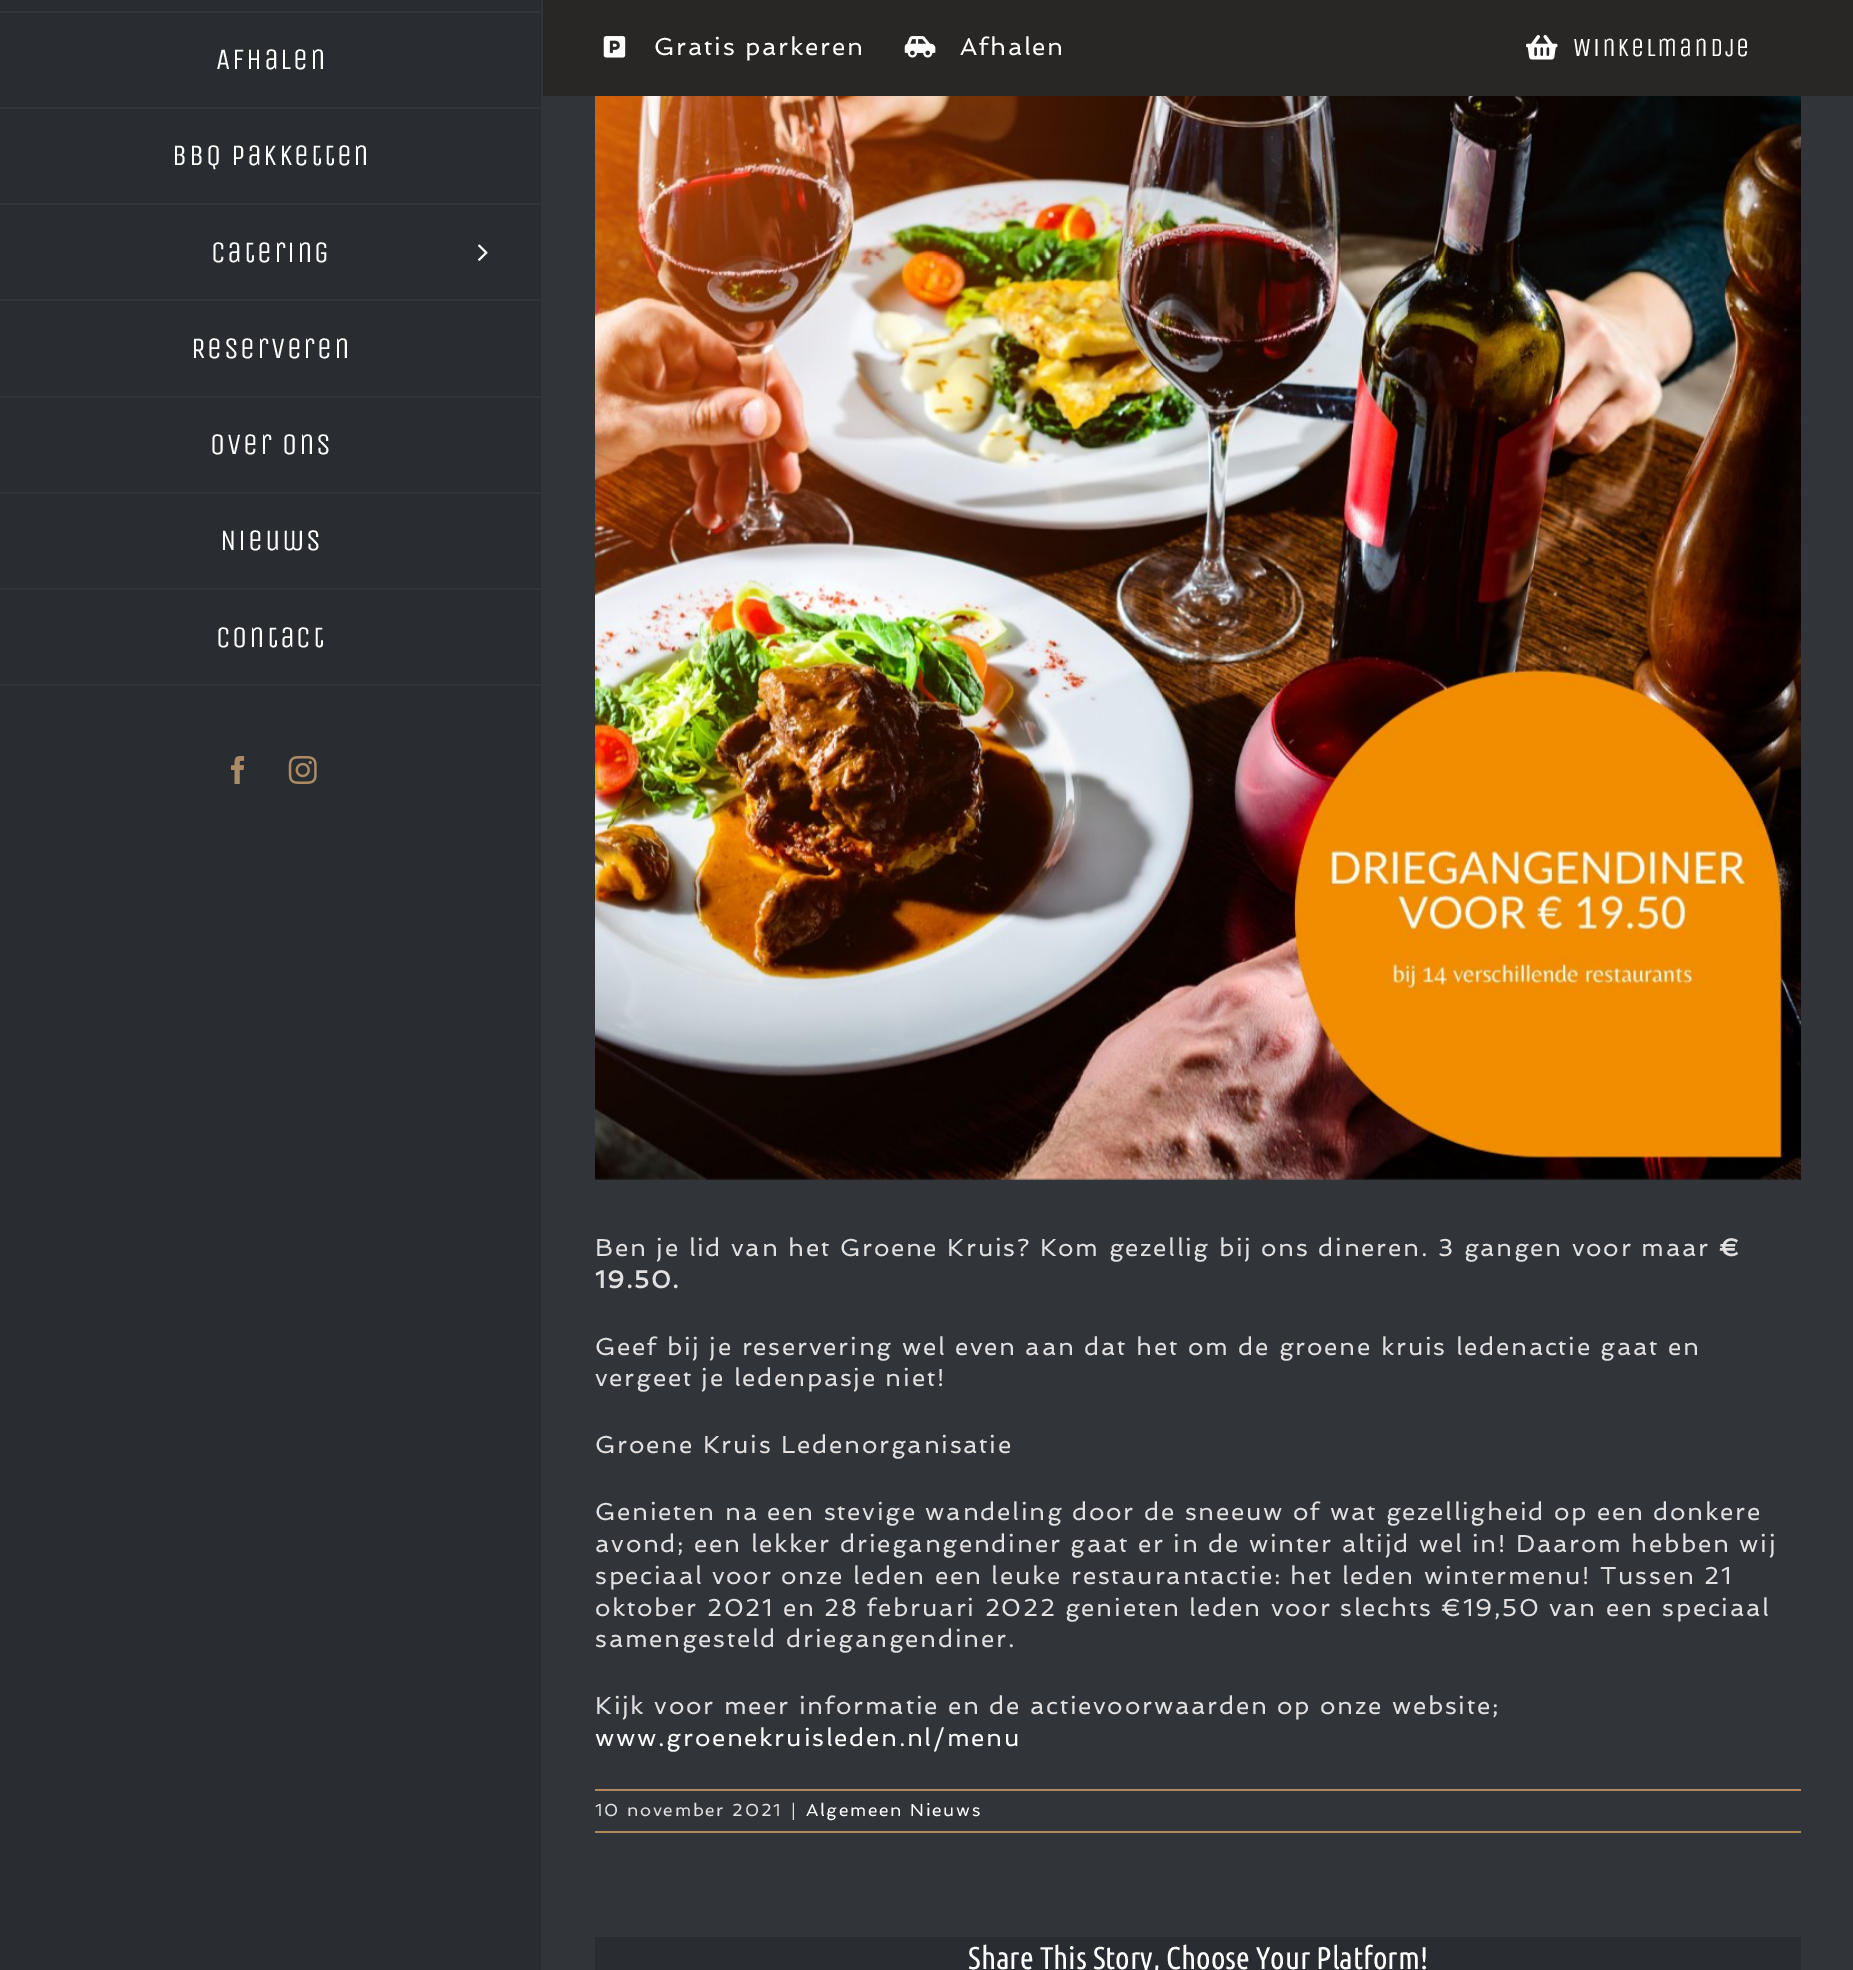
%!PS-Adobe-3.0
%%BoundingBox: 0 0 1853 1970
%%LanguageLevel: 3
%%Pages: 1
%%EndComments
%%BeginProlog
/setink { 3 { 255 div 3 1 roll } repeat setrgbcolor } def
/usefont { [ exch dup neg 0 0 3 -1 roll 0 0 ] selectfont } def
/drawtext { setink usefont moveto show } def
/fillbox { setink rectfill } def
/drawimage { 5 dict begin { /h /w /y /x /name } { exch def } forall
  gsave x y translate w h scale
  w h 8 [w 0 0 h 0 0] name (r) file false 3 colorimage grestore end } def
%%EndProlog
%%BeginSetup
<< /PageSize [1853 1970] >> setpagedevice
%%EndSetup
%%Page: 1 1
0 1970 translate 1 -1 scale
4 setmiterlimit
0 0 1853 1970 49 53 57 fillbox
0 0 541 1970 41 44 48 fillbox
0 11 543 2 49 53 57 fillbox
0 107 543 2 49 53 57 fillbox
/UnicaOne-Regular 29.75 usefont
255 255 255 setink
216 69 moveto 1.75 0 (Afhalen) ashow
0 203 543 2 49 53 57 fillbox
255 255 255 setink
172 165 moveto 1.75 0 (BBQ Pakketten) ashow
0 299 543 2 49 53 57 fillbox
255 255 255 setink
211 262 moveto 1.75 0 (Catering) ashow
(assets/img1.rgb) 478 244 10 17 drawimage
0 396 543 2 49 53 57 fillbox
255 255 255 setink
191 358 moveto 1.75 0 (Reserveren) ashow
0 492 543 2 49 53 57 fillbox
255 255 255 setink
210 454 moveto 1.75 0 (Over Ons) ashow
0 588 543 2 49 53 57 fillbox
255 255 255 setink
220 550 moveto 1.75 0 (Nieuws) ashow
0 684 543 2 49 53 57 fillbox
255 255 255 setink
216 647 moveto 1.75 0 (Contact) ashow
(assets/img2.rgb) 231 756 14 28 drawimage
(assets/img3.rgb) 288 756 29 28 drawimage
543 0 1310 96 40 39 37 fillbox
(assets/img4.rgb) 603 36 23 22 drawimage
/Spinnaker-Regular 24.5 usefont
255 255 255 setink
654 55 moveto 1.75 0 (Gratis parkeren) ashow
(assets/img5.rgb) 904 36 32 22 drawimage
960 55 moveto 1.75 0 (Afhalen) ashow
(assets/img6.rgb) 1526 35 32 25 drawimage
/UnicaOne-Regular 26.25 usefont
1573 56 moveto 1.75 0 (Winkelmandje) ashow
(assets/img7.rgb) 595 96 1206 1084 drawimage
/Spinnaker-Regular 24.5 usefont
226 224 224 setink
595 1256 moveto 1.75 0 (Ben je lid van het Groene Kruis? Kom gezellig bij ons dineren. 3 gangen voor maar) ashow
/Spinnaker-Bold 24.5 usefont
1719 1256 moveto 1.75 0 (€) ashow
595 1288 moveto 1.75 0 (19.50.) ashow
/Spinnaker-Regular 24.5 usefont
595 1355 moveto 1.75 0 (Geef bij je reservering wel even aan dat het om de groene kruis ledenactie gaat en) ashow
595 1386 moveto 1.75 0 (vergeet je ledenpasje niet!) ashow
595 1453 moveto 1.75 0 (Groene Kruis Ledenorganisatie) ashow
595 1520 moveto 1.75 0 (Genieten na een stevige wandeling door de sneeuw of wat gezelligheid op een donkere) ashow
595 1552 moveto 1.75 0 (avond; een lekker driegangendiner gaat er in de winter altijd wel in! Daarom hebben wij) ashow
595 1584 moveto 1.75 0 (speciaal voor onze leden een leuke restaurantactie: het leden wintermenu! Tussen 21) ashow
595 1616 moveto 1.75 0 (oktober 2021 en 28 februari 2022 genieten leden voor slechts €19,50 van een speciaal) ashow
595 1647 moveto 1.75 0 (samengesteld driegangendiner.) ashow
595 1714 moveto 1.75 0 (Kijk voor meer informatie en de actievoorwaarden op onze website;) ashow
255 255 255 setink
595 1746 moveto 1.75 0 (www.groenekruisleden.nl/menu) ashow
595 1789 1206 2 174 137 93 fillbox
595 1831 1206 2 174 137 93 fillbox
/Spinnaker-Regular 17.5 usefont
226 224 224 setink
595 1816 moveto 1.75 0 (10 november 2021) ashow
791 1816 moveto 1.75 0 (|) ashow
255 255 255 setink
806 1816 moveto 1.75 0 (Algemeen Nieuws) ashow
595 1937 1206 33 41 44 48 fillbox
(Share This Story, Choose Your Platform!) 968 1969 /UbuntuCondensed-Regular 31.5 255 255 255 drawtext
showpage
%%EOF
